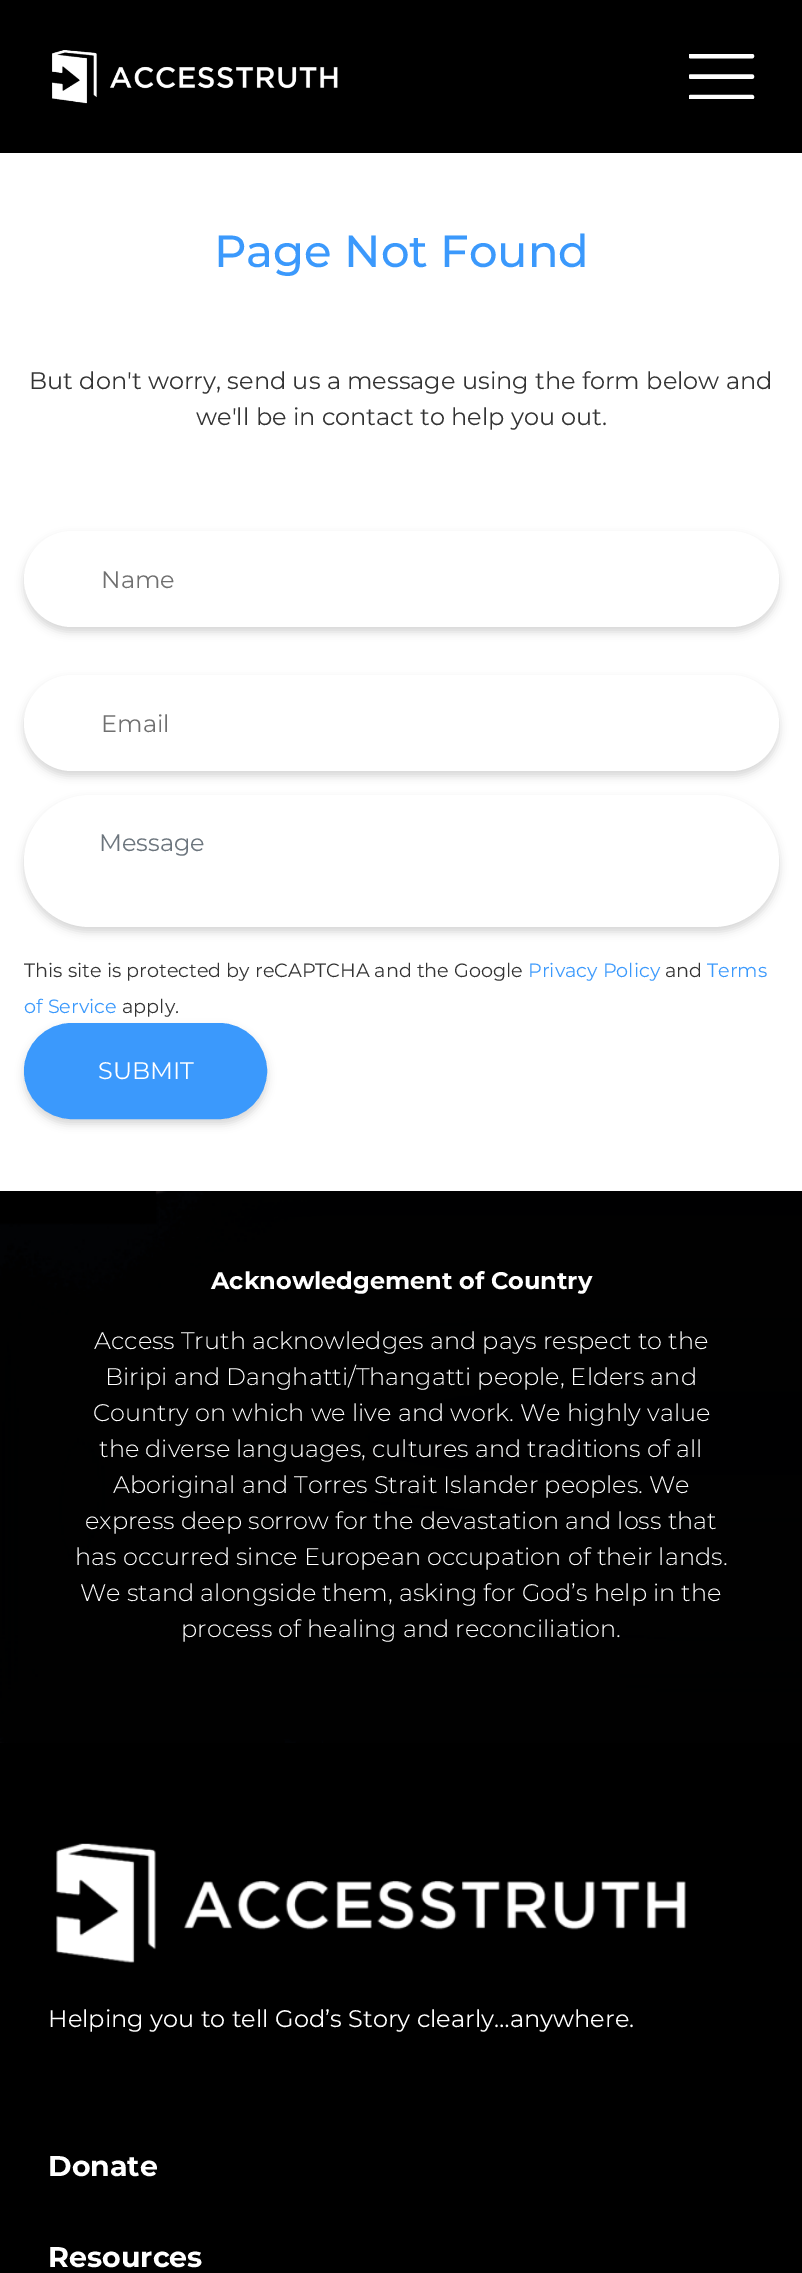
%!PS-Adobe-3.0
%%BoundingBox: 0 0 802 2273
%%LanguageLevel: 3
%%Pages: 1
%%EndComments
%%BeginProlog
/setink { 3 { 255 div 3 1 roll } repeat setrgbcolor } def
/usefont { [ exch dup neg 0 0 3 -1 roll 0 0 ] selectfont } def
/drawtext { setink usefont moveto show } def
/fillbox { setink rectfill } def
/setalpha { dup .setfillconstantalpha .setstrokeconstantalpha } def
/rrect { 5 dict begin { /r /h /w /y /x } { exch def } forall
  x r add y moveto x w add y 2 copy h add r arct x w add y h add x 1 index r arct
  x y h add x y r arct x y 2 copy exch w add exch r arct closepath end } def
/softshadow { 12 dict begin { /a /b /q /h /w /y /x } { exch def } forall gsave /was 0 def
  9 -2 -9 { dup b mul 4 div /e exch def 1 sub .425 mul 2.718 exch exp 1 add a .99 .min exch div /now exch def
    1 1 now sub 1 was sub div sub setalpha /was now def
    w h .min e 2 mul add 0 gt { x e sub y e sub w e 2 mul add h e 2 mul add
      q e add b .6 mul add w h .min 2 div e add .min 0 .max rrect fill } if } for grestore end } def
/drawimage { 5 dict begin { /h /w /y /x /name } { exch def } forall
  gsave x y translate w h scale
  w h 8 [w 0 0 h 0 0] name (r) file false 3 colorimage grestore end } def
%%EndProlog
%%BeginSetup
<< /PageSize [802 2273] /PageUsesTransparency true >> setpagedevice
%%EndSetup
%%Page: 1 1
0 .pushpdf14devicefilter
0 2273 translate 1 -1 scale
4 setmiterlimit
0 0 802 2273 255 255 255 fillbox
0 0 802 153 0 0 0 fillbox
(assets/img1.rgb) 52 50 286 54 drawimage
gsave
689 54 66 45 rectclip
255 255 255 setink
4.5 setlinewidth
1 setlinecap
1 setlinejoin
690.5 56 moveto 752 56 lineto stroke
690.5 76.5 moveto 752 76.5 lineto stroke
690.5 97 moveto 752 97 lineto stroke
grestore
(Page Not Found) 214 267 /Montserrat-Medium 45 59 153 252 drawtext
(But don't worry, send us a message using the form below and) 29 389 /Montserrat-Regular 24 51 51 51 drawtext
(we'll be in contact to help you out.) 196 425 /Montserrat-Regular 24 51 51 51 drawtext
0 0 0 setink
24 536 755 96 48 4.5 0.16 softshadow
255 255 255 setink
24 531 755 96 48 rrect fill
(Name) 101 588 /Montserrat-Regular 24 112 112 112 drawtext
0 0 0 setink
24 680 755 96 48 4.5 0.16 softshadow
255 255 255 setink
24 675 755 96 48 rrect fill
(Email) 101 732 /Montserrat-Regular 24 112 112 112 drawtext
0 0 0 setink
24 800 755 132 66 4.5 0.16 softshadow
255 255 255 setink
24 795 755 132 66 rrect fill
(Message) 99 851 /Montserrat-Regular 24 108 117 125 drawtext
(This site is protected by reCAPTCHA and the Google) 24 977 /Montserrat-Regular 19.2 51 51 51 drawtext
(Privacy Policy) 528 977 /Montserrat-Regular 19.2 59 153 252 drawtext
(and) 665 977 /Montserrat-Regular 19.2 51 51 51 drawtext
(Terms) 707 977 /Montserrat-Regular 19.2 59 153 252 drawtext
(of Service) 24 1013 /Montserrat-Regular 19.2 59 153 252 drawtext
(apply.) 122 1013 /Montserrat-Regular 19.2 51 51 51 drawtext
0 0 0 setink
24 1028 243 96 48 4.5 0.16 softshadow
59 153 252 setink
25 1024 241 94 47 rrect gsave fill grestore
2 setlinewidth
stroke
(SUBMIT) 98 1079 /Montserrat-Regular 24 255 255 255 drawtext
(assets/img2.rgb) 0 1191 802 552 drawimage
(Acknowledgement of Country) 211 1289 /Montserrat-Bold 24 255 255 255 drawtext
(Access Truth acknowledges and pays respect to the) 94 1349 /Montserrat-Light 24 255 255 255 drawtext
(Biripi and Danghatti/Thangatti people, Elders and) 105 1385 /Montserrat-Light 24 255 255 255 drawtext
(Country on which we live and work. We highly value) 93 1421 /Montserrat-Light 24 255 255 255 drawtext
(the diverse languages, cultures and traditions of all) 99 1457 /Montserrat-Light 24 255 255 255 drawtext
(Aboriginal and Torres Strait Islander peoples. We) 113 1493 /Montserrat-Light 24 255 255 255 drawtext
(express deep sorrow for the devastation and loss that) 85 1529 /Montserrat-Light 24 255 255 255 drawtext
(has occurred since European occupation of their lands.) 75 1565 /Montserrat-Light 24 255 255 255 drawtext
(We stand alongside them, asking for God’s help in the) 80 1601 /Montserrat-Light 24 255 255 255 drawtext
(process of healing and reconciliation.) 181 1637 /Montserrat-Light 24 255 255 255 drawtext
0 1743 802 530 0 0 0 fillbox
(assets/img3.rgb) 56 1843 630 120 drawimage
(Helping you to tell God’s Story clearly…anywhere.) 48 2027 /Montserrat-Regular 24 255 255 255 drawtext
(Donate) 48 2176 /Montserrat-Bold 28.5 255 255 255 drawtext
(Resources) 48 2267 /Montserrat-Bold 28.5 255 255 255 drawtext
.poppdf14devicefilter showpage
%%EOF
